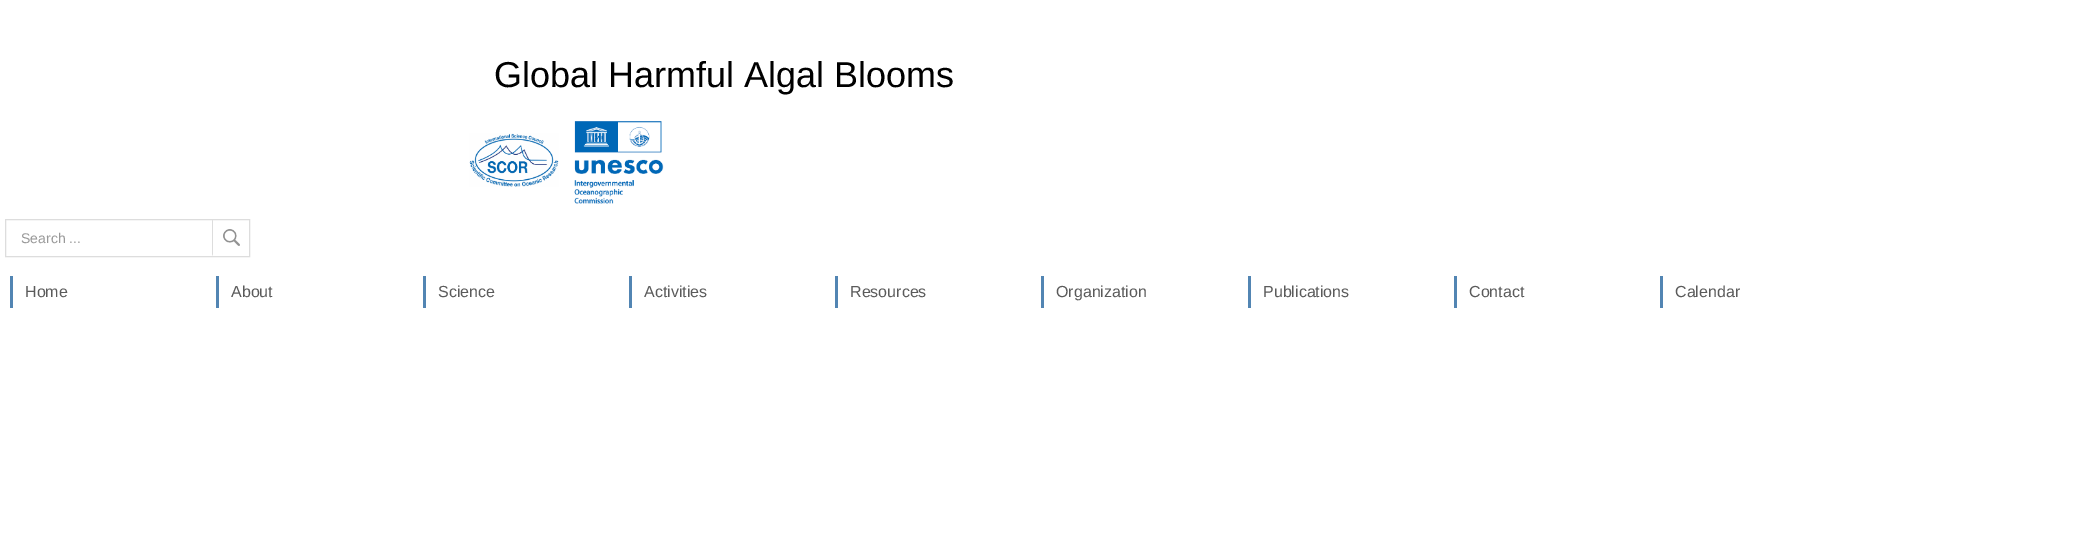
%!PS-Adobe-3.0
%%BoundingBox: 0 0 2098 553
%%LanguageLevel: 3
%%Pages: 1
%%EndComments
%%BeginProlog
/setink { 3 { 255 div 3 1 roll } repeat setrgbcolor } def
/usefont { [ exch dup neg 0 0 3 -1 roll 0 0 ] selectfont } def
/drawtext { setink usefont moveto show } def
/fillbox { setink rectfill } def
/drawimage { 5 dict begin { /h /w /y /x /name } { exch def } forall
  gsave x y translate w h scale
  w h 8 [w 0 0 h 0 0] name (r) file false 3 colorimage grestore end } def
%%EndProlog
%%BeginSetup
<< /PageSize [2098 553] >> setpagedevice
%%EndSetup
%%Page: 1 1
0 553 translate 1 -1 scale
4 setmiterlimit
0 0 2098 553 255 255 255 fillbox
(Global Harmful Algal Blooms) 494 87 /LiberationSans-Regular 36 0 0 0 drawtext
(assets/img1.rgb) 469 133 90 54 drawimage
(assets/img2.rgb) 574 121 90 83 drawimage
221 221 221 setink
5.5 219.5 244 37 rectstroke
(Search ...) 21 243 /LiberationSans-Regular 14 153 153 153 drawtext
(assets/img3.rgb) 223 229 17 17 drawimage
221 221 221 setink
212 256 moveto 212 219 lineto 213 221 lineto 213 254 lineto closepath fill
10 276 3 32 82 133 179 fillbox
(Home) 25 297 /LiberationSans-Regular 16 91 91 91 drawtext
216 276 3 32 82 133 179 fillbox
(About) 231 297 /LiberationSans-Regular 16 91 91 91 drawtext
423 276 3 32 82 133 179 fillbox
(Science) 438 297 /LiberationSans-Regular 16 91 91 91 drawtext
629 276 3 32 82 133 179 fillbox
(Activities) 644 297 /LiberationSans-Regular 16 91 91 91 drawtext
835 276 3 32 82 133 179 fillbox
(Resources) 850 297 /LiberationSans-Regular 16 91 91 91 drawtext
1041 276 3 32 82 133 179 fillbox
(Organization) 1056 297 /LiberationSans-Regular 16 91 91 91 drawtext
1248 276 3 32 82 133 179 fillbox
(Publications) 1263 297 /LiberationSans-Regular 16 91 91 91 drawtext
1454 276 3 32 82 133 179 fillbox
(Contact) 1469 297 /LiberationSans-Regular 16 91 91 91 drawtext
1660 276 3 32 82 133 179 fillbox
(Calendar) 1675 297 /LiberationSans-Regular 16 91 91 91 drawtext
showpage
%%EOF
